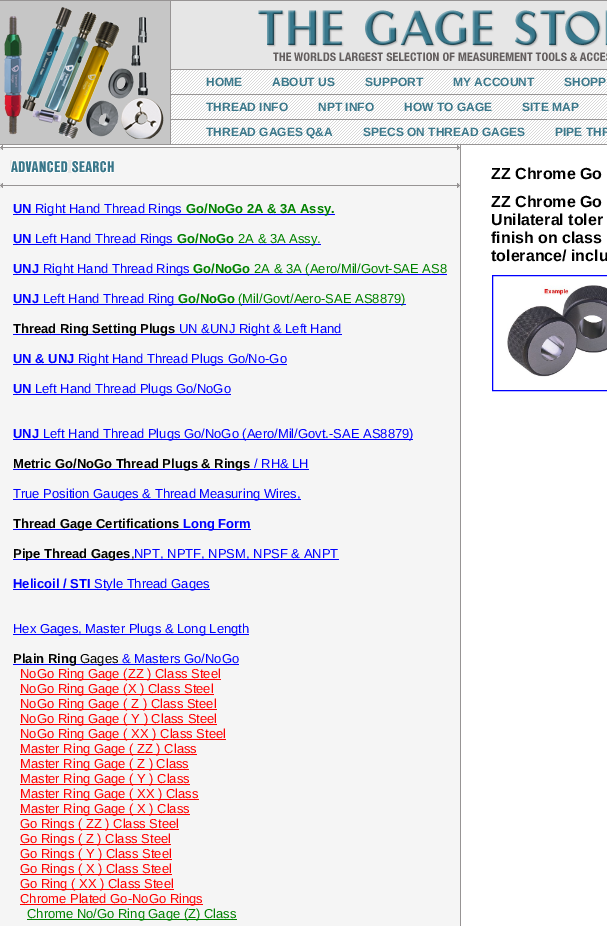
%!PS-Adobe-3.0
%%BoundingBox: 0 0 607 926
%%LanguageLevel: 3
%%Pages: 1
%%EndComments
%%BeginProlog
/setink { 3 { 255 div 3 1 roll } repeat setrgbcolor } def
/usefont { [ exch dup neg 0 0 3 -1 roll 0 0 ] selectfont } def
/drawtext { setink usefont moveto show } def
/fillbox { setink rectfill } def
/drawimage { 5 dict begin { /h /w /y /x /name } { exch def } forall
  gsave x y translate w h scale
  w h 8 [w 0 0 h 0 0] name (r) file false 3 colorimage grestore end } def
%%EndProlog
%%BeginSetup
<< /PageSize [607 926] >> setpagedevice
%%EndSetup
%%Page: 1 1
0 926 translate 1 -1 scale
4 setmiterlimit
0 0 607 926 255 255 255 fillbox
0 0 607 1 151 148 148 fillbox
0 144 607 1 151 148 148 fillbox
0 1 170 143 198 198 198 fillbox
170 1 1 143 151 148 148 fillbox
(assets/img1.rgb) 4 7 160 132 drawimage
171 1 436 68 230 230 230 fillbox
(assets/img2.rgb) 258 10 349 51 drawimage
(assets/img3.rgb) 171 70 436 24 drawimage
171 69 436 1 151 148 148 fillbox
(HOME) 206 86 /LiberationSans-Bold 12 58 119 138 drawtext
(ABOUT US) 272 86 /LiberationSans-Bold 12 58 119 138 drawtext
(SUPPORT) 365 86 /LiberationSans-Bold 12 58 119 138 drawtext
(MY ACCOUNT) 453 86 /LiberationSans-Bold 12 58 119 138 drawtext
(SHOPP) 564 86 /LiberationSans-Bold 12 58 119 138 drawtext
(assets/img3.rgb) 171 95 436 24 drawimage
171 94 436 1 151 148 148 fillbox
(THREAD INFO) 206 111 /LiberationSans-Bold 12 58 119 138 drawtext
(NPT INFO) 318 111 /LiberationSans-Bold 12 58 119 138 drawtext
(HOW TO GAGE) 404 111 /LiberationSans-Bold 12 58 119 138 drawtext
(SITE MAP) 522 111 /LiberationSans-Bold 12 58 119 138 drawtext
(assets/img3.rgb) 171 120 436 24 drawimage
171 119 436 1 151 148 148 fillbox
(THREAD GAGES Q&A) 206 136 /LiberationSans-Bold 12 58 119 138 drawtext
(SPECS ON THREAD GAGES) 363 136 /LiberationSans-Bold 12 58 119 138 drawtext
(PIPE THR) 555 136 /LiberationSans-Bold 12 58 119 138 drawtext
(assets/img4.rgb) 1 145 2 2 drawimage
(assets/img5.rgb) 457 145 2 2 drawimage
0 147 460 1 151 148 148 fillbox
0 148 460 37 245 245 245 fillbox
(assets/img6.rgb) 0 148 3 2 drawimage
(assets/img7.rgb) 457 148 3 2 drawimage
460 145 1 781 151 148 148 fillbox
(assets/img8.rgb) 10 160 104 13 drawimage
(assets/img9.rgb) 0 183 3 2 drawimage
(assets/img10.rgb) 457 183 3 2 drawimage
0 185 460 1 151 148 148 fillbox
0 186 460 740 245 245 245 fillbox
(assets/img6.rgb) 0 186 3 2 drawimage
(assets/img7.rgb) 457 186 3 2 drawimage
(UN) 13 213 /LiberationSans-Bold 13 0 0 255 drawtext
13 214 322 1 0 0 255 fillbox
(Right Hand Thread Rings) 35 213 /LiberationSans-Regular 13 0 0 255 drawtext
(Go/NoGo 2A & 3A Assy.) 186 213 /LiberationSans-Bold 13 0 128 0 drawtext
(UN) 13 243 /LiberationSans-Bold 13 0 0 255 drawtext
13 244 308 1 0 0 255 fillbox
(Left Hand Thread Rings) 35 243 /LiberationSans-Regular 13 0 0 255 drawtext
(Go/NoGo) 177 243 /LiberationSans-Bold 13 0 128 0 drawtext
(2A & 3A Assy.) 238 243 /LiberationSans-Regular 13 0 128 0 drawtext
(UNJ) 13 273 /LiberationSans-Bold 13 0 0 255 drawtext
13 274 434 1 0 0 255 fillbox
(Right Hand Thread Rings) 43 273 /LiberationSans-Regular 13 0 0 255 drawtext
(Go/NoGo) 193 273 /LiberationSans-Bold 13 0 128 0 drawtext
(2A & 3A \(Aero/Mil/Govt-SAE AS8) 254 273 /LiberationSans-Regular 13 0 128 0 drawtext
(UNJ) 13 303 /LiberationSans-Bold 13 0 0 255 drawtext
13 304 393 1 0 0 255 fillbox
(Left Hand Thread Ring) 43 303 /LiberationSans-Regular 13 0 0 255 drawtext
(Go/NoGo) 178 303 /LiberationSans-Bold 13 0 128 0 drawtext
(\(Mil/Govt/Aero-SAE AS8879\)) 238 303 /LiberationSans-Regular 13 0 128 0 drawtext
13 334 329 1 0 0 255 fillbox
(Thread Ring Setting Plugs) 13 333 /LiberationSans-Bold 13 0 0 0 drawtext
(UN &UNJ Right & Left Hand) 179 333 /LiberationSans-Regular 13 0 0 255 drawtext
(UN & UNJ) 13 363 /LiberationSans-Bold 13 0 0 255 drawtext
13 364 274 1 0 0 255 fillbox
(Right Hand Thread Plugs Go/No-Go) 78 363 /LiberationSans-Regular 13 0 0 255 drawtext
(UN) 13 393 /LiberationSans-Bold 13 0 0 255 drawtext
13 394 218 1 0 0 255 fillbox
(Left Hand Thread Plugs Go/NoGo) 35 393 /LiberationSans-Regular 13 0 0 255 drawtext
(UNJ) 13 438 /LiberationSans-Bold 13 0 0 255 drawtext
13 439 400 1 0 0 255 fillbox
(Left Hand Thread Plugs Go/NoGo \(Aero/Mil/Govt.-SAE AS8879\)) 43 438 /LiberationSans-Regular 13 0 0 255 drawtext
13 469 296 1 0 0 255 fillbox
(Metric Go/NoGo Thread Plugs & Rings) 13 468 /LiberationSans-Bold 13 0 0 0 drawtext
(/ RH& LH) 254 468 /LiberationSans-Regular 13 0 0 255 drawtext
13 499 288 1 0 0 255 fillbox
(True Position Gauges & Thread Measuring Wires,) 13 498 /LiberationSans-Regular 13 0 0 255 drawtext
13 529 238 1 0 0 255 fillbox
(Thread Gage Certifications) 13 528 /LiberationSans-Bold 13 0 0 0 drawtext
(Long Form) 183 528 /LiberationSans-Bold 13 0 0 255 drawtext
13 559 326 1 0 0 255 fillbox
(Pipe Thread Gages) 13 558 /LiberationSans-Bold 13 0 0 0 drawtext
(,) 131 558 /LiberationSans-Regular 13 0 0 0 drawtext
(NPT, NPTF, NPSM, NPSF & ANPT) 134 558 /LiberationSans-Regular 13 0 0 255 drawtext
(Helicoil / STI) 13 588 /LiberationSans-Bold 13 0 0 255 drawtext
13 589 197 1 0 0 255 fillbox
(Style Thread Gages) 94 588 /LiberationSans-Regular 13 0 0 255 drawtext
13 634 236 1 0 0 255 fillbox
(Hex Gages, Master Plugs & Long Length) 13 633 /LiberationSans-Regular 13 0 0 255 drawtext
13 664 226 1 0 0 255 fillbox
(Plain Ring) 13 663 /LiberationSans-Bold 13 0 0 0 drawtext
(Gages) 80 663 /LiberationSans-Regular 13 0 0 0 drawtext
(& Masters Go/NoGo) 122 663 /LiberationSans-Regular 13 0 0 255 drawtext
20 679 201 1 255 0 0 fillbox
(NoGo Ring Gage \(ZZ \) Class Steel) 20 678 /LiberationSans-Regular 13 255 0 0 drawtext
20 694 194 1 255 0 0 fillbox
(NoGo Ring Gage \(X \) Class Steel) 20 693 /LiberationSans-Regular 13 255 0 0 drawtext
20 709 197 1 255 0 0 fillbox
(NoGo Ring Gage \( Z \) Class Steel) 20 708 /LiberationSans-Regular 13 255 0 0 drawtext
20 724 197 1 255 0 0 fillbox
(NoGo Ring Gage \( Y \) Class Steel) 20 723 /LiberationSans-Regular 13 255 0 0 drawtext
20 739 206 1 255 0 0 fillbox
(NoGo Ring Gage \( XX \) Class Steel) 20 738 /LiberationSans-Regular 13 255 0 0 drawtext
20 754 177 1 255 0 0 fillbox
(Master Ring Gage \( ZZ \) Class) 20 753 /LiberationSans-Regular 13 255 0 0 drawtext
20 769 169 1 255 0 0 fillbox
(Master Ring Gage \( Z \) Class) 20 768 /LiberationSans-Regular 13 255 0 0 drawtext
20 784 170 1 255 0 0 fillbox
(Master Ring Gage \( Y \) Class) 20 783 /LiberationSans-Regular 13 255 0 0 drawtext
20 799 179 1 255 0 0 fillbox
(Master Ring Gage \( XX \) Class) 20 798 /LiberationSans-Regular 13 255 0 0 drawtext
20 814 170 1 255 0 0 fillbox
(Master Ring Gage \( X \) Class) 20 813 /LiberationSans-Regular 13 255 0 0 drawtext
20 829 159 1 255 0 0 fillbox
(Go Rings \( ZZ \) Class Steel) 20 828 /LiberationSans-Regular 13 255 0 0 drawtext
20 844 151 1 255 0 0 fillbox
(Go Rings \( Z \) Class Steel) 20 843 /LiberationSans-Regular 13 255 0 0 drawtext
20 859 152 1 255 0 0 fillbox
(Go Rings \( Y \) Class Steel) 20 858 /LiberationSans-Regular 13 255 0 0 drawtext
20 874 152 1 255 0 0 fillbox
(Go Rings \( X \) Class Steel) 20 873 /LiberationSans-Regular 13 255 0 0 drawtext
20 889 154 1 255 0 0 fillbox
(Go Ring \( XX \) Class Steel) 20 888 /LiberationSans-Regular 13 255 0 0 drawtext
20 904 183 1 255 0 0 fillbox
(Chrome Plated Go-NoGo Rings) 20 903 /LiberationSans-Regular 13 255 0 0 drawtext
27 919 210 1 0 128 0 fillbox
(Chrome No/Go Ring Gage \(Z\) Class) 27 918 /LiberationSans-Regular 13 0 128 0 drawtext
(ZZ Chrome Go) 491 179 /LiberationSans-Bold 16 0 0 0 drawtext
(ZZ Chrome Go) 491 207 /LiberationSans-Bold 16 0 0 0 drawtext
(Unilateral toler) 491 225 /LiberationSans-Bold 16 0 0 0 drawtext
(finish on class) 491 243 /LiberationSans-Bold 16 0 0 0 drawtext
(tolerance/ inclu) 491 261 /LiberationSans-Bold 16 0 0 0 drawtext
0 0 255 setink
492.5 275.5 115 115 rectstroke
(assets/img11.rgb) 507 285 100 92 drawimage
showpage
%%EOF
